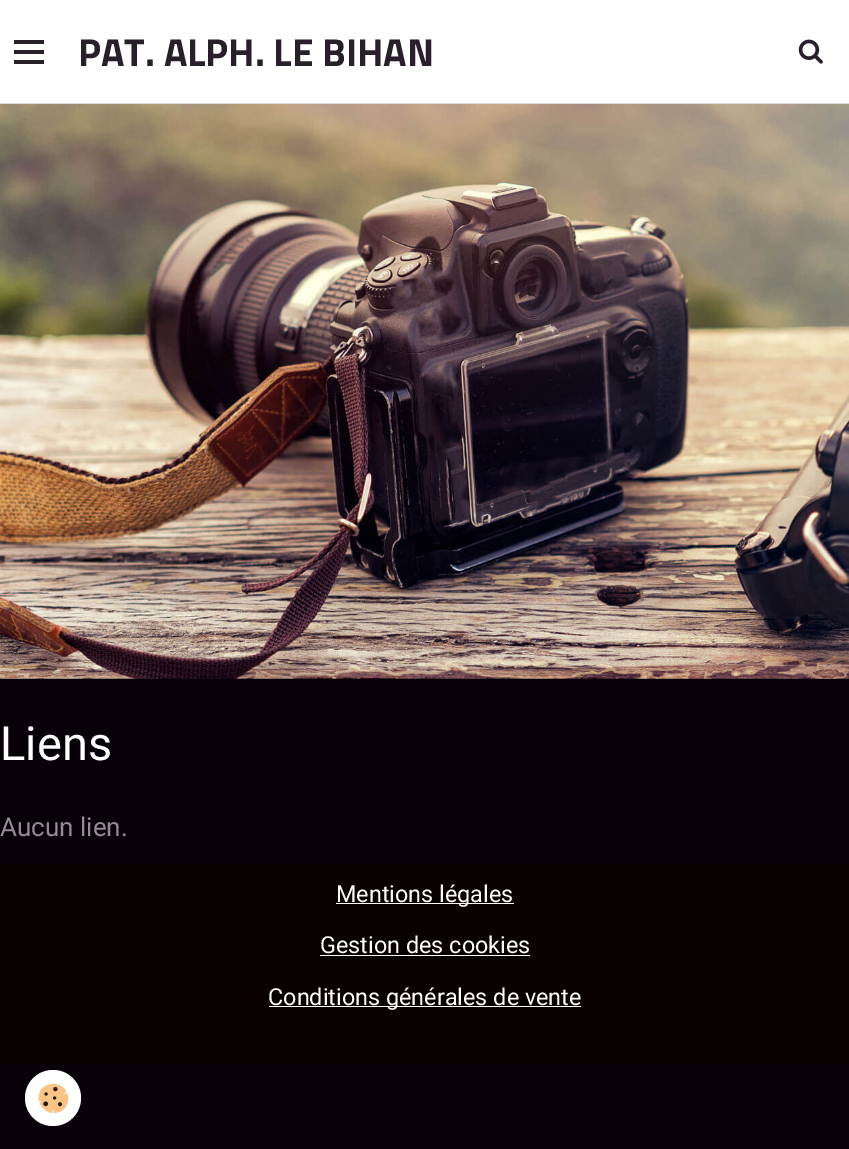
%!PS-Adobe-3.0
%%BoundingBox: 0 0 849 1149
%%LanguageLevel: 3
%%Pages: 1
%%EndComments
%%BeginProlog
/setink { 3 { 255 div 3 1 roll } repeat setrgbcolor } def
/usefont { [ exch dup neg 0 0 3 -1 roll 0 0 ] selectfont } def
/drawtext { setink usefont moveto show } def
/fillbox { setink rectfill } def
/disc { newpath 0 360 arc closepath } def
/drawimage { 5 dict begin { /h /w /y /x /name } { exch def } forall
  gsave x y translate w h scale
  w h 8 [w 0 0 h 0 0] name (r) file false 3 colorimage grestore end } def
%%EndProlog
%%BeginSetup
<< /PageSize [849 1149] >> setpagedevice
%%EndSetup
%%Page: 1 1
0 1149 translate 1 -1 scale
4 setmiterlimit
0 0 849 1149 7 0 9 fillbox
0 0 849 103 255 255 255 fillbox
0 103 849 1 219 219 219 fillbox
14 50 30 4 40 31 43 fillbox
14 40 30 4 40 31 43 fillbox
14 60 30 4 40 31 43 fillbox
(PAT. ALPH. LE BIHAN) 78 66 /TitilliumWeb-Bold 39 40 31 43 drawtext
(assets/img1.rgb) 798 39 25 25 drawimage
(assets/img2.rgb) 0 104 849 575 drawimage
(Liens) 0 760 /Roboto-Regular 47 255 255 255 drawtext
(Aucun lien.) 0 836 /Roboto-Regular 26 146 142 146 drawtext
0 865 849 199 9 1 0 fillbox
336 903 178 1 255 255 255 fillbox
(Mentions légales) 336 902 /Roboto-Regular 23.4 255 255 255 drawtext
(Gestion des cookies) 320 953 /Roboto-Regular 23.4 255 255 255 drawtext
320 955 210 1 255 255 255 fillbox
269 1006 312 1 255 255 255 fillbox
(Conditions générales de vente) 268 1005 /Roboto-Regular 23.4 255 255 255 drawtext
53 1098 28 disc fill
(assets/img3.rgb) 38 1083 31 30 drawimage
showpage
%%EOF
